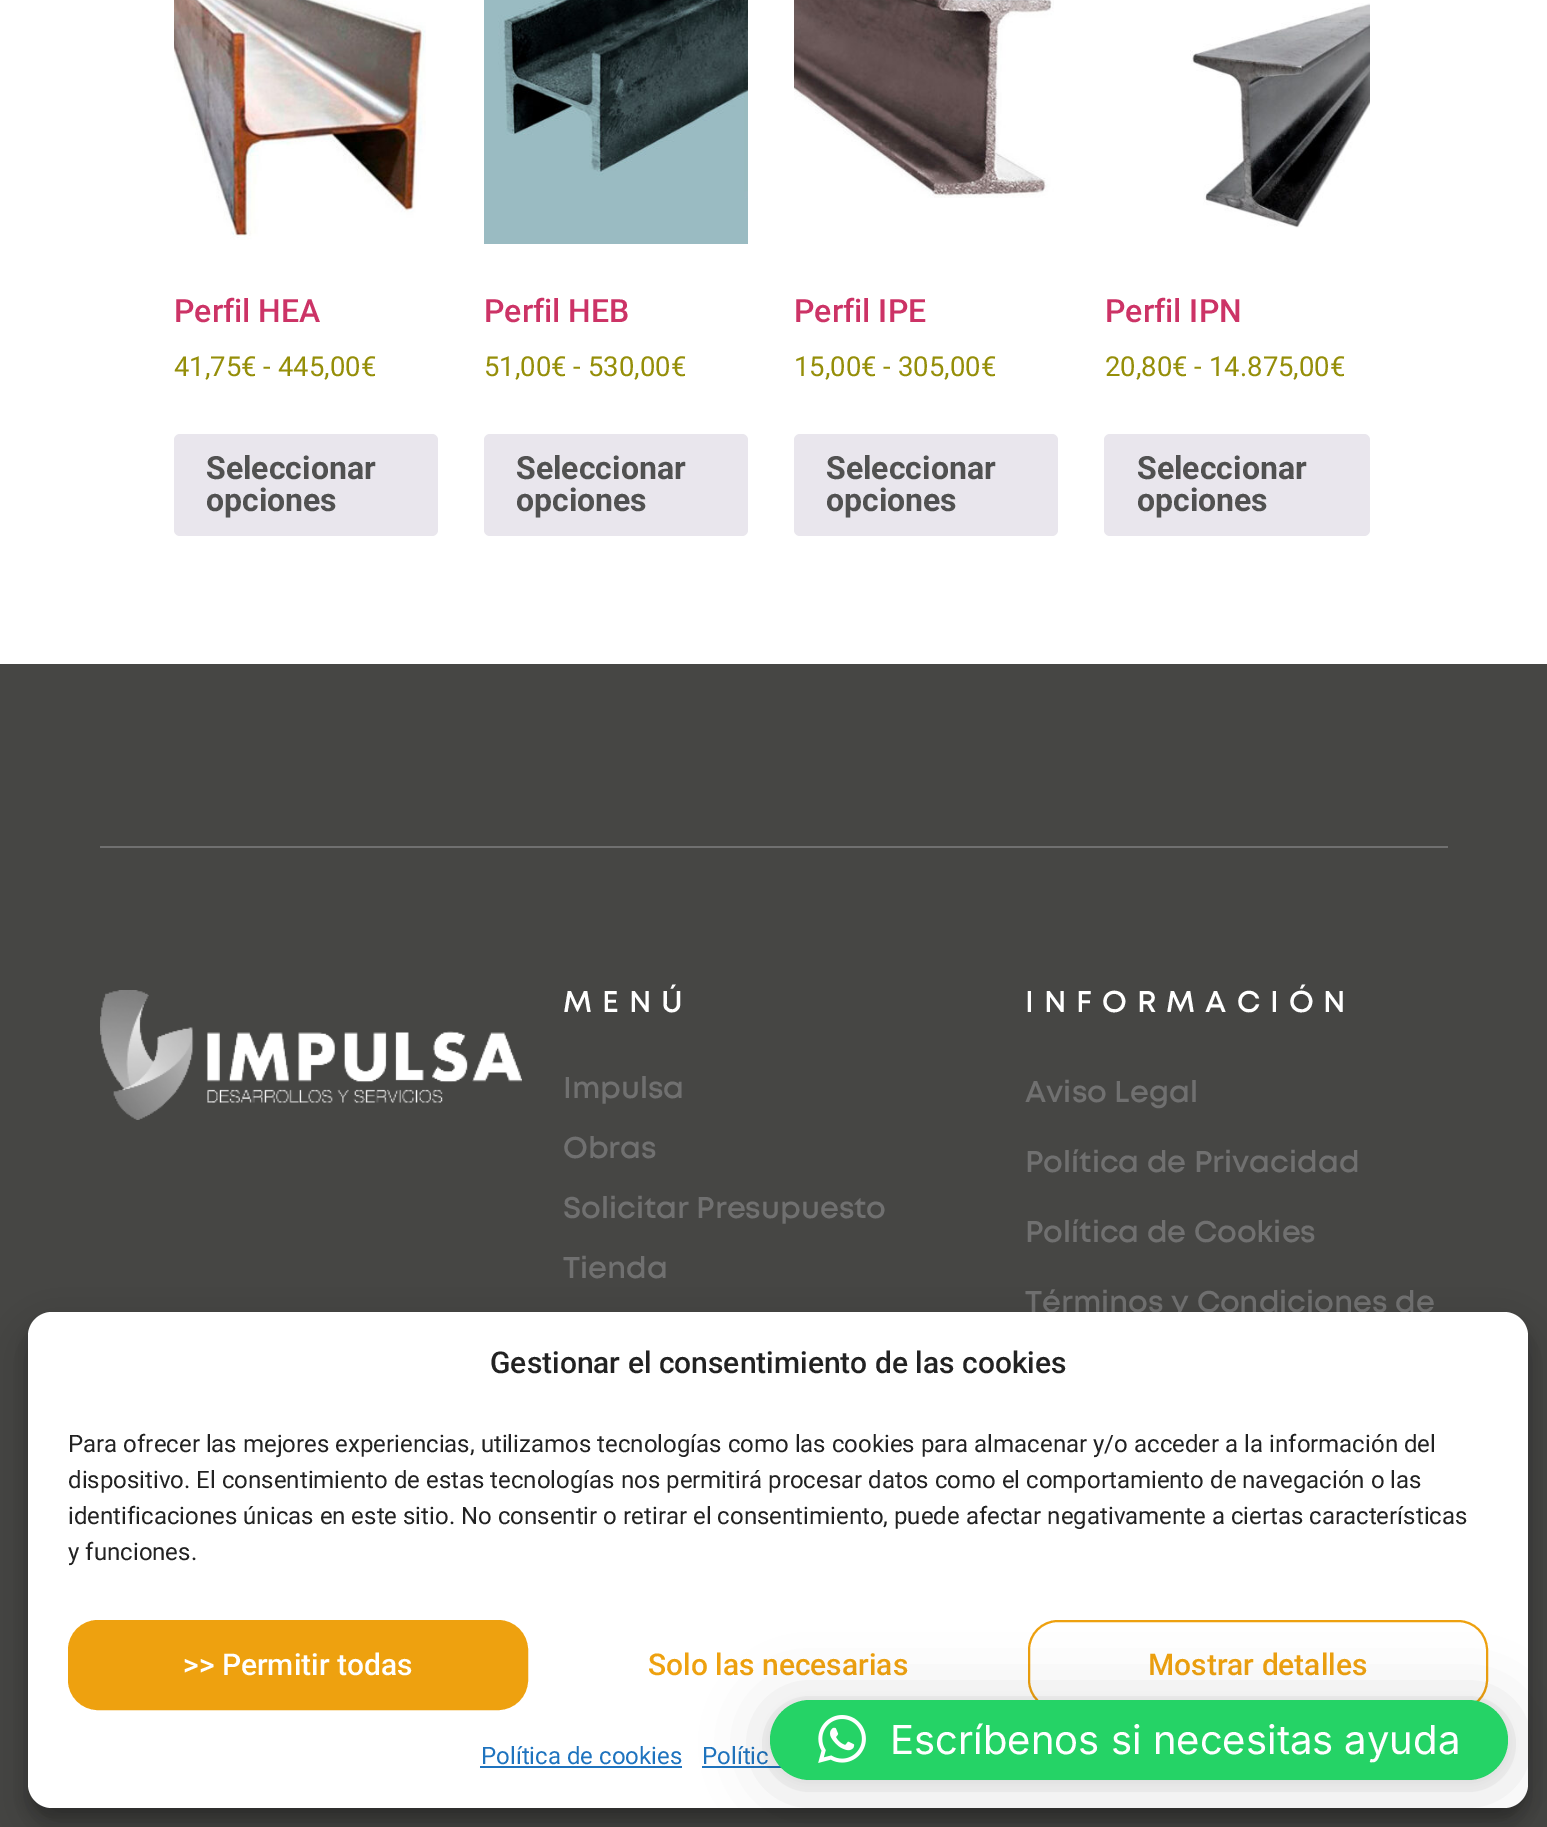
%!PS-Adobe-3.0
%%BoundingBox: 0 0 1547 1827
%%LanguageLevel: 3
%%Pages: 1
%%EndComments
%%BeginProlog
/setink { 3 { 255 div 3 1 roll } repeat setrgbcolor } def
/usefont { [ exch dup neg 0 0 3 -1 roll 0 0 ] selectfont } def
/drawtext { setink usefont moveto show } def
/fillbox { setink rectfill } def
/setalpha { dup .setfillconstantalpha .setstrokeconstantalpha } def
/rrect { 5 dict begin { /r /h /w /y /x } { exch def } forall
  x r add y moveto x w add y 2 copy h add r arct x w add y h add x 1 index r arct
  x y h add x y r arct x y 2 copy exch w add exch r arct closepath end } def
/softshadow { 12 dict begin { /a /b /q /h /w /y /x } { exch def } forall gsave /was 0 def
  9 -2 -9 { dup b mul 4 div /e exch def 1 sub .425 mul 2.718 exch exp 1 add a .99 .min exch div /now exch def
    1 1 now sub 1 was sub div sub setalpha /was now def
    w h .min e 2 mul add 0 gt { x e sub y e sub w e 2 mul add h e 2 mul add
      q e add b .6 mul add w h .min 2 div e add .min 0 .max rrect fill } if } for grestore end } def
/drawimage { 5 dict begin { /h /w /y /x /name } { exch def } forall
  gsave x y translate w h scale
  w h 8 [w 0 0 h 0 0] name (r) file false 3 colorimage grestore end } def
%%EndProlog
%%BeginSetup
<< /PageSize [1547 1827] /PageUsesTransparency true >> setpagedevice
%%EndSetup
%%Page: 1 1
0 .pushpdf14devicefilter
0 1827 translate 1 -1 scale
4 setmiterlimit
0 0 1547 1827 255 255 255 fillbox
(assets/img1.rgb) 174 0 252 240 drawimage
(Perfil HEA) 174 322 /Roboto-Medium 32 204 51 102 drawtext
(41,75€ - 445,00€) 174 376 /Roboto-Regular 27.5 149 142 9 drawtext
233 230 237 setink
174 434 264 102 6 rrect fill
(Seleccionar) 206 479 /Roboto-Bold 32 81 81 81 drawtext
(opciones) 206 511 /Roboto-Bold 32 81 81 81 drawtext
(assets/img2.rgb) 484 0 264 244 drawimage
(Perfil HEB) 484 322 /Roboto-Medium 32 204 51 102 drawtext
(51,00€ - 530,00€) 484 376 /Roboto-Regular 27.5 149 142 9 drawtext
233 230 237 setink
484 434 264 102 6 rrect fill
(Seleccionar) 516 479 /Roboto-Bold 32 81 81 81 drawtext
(opciones) 516 511 /Roboto-Bold 32 81 81 81 drawtext
(assets/img3.rgb) 794 0 260 198 drawimage
(Perfil IPE) 794 322 /Roboto-Medium 32 204 51 102 drawtext
(15,00€ - 305,00€) 794 376 /Roboto-Regular 27.5 149 142 9 drawtext
233 230 237 setink
794 434 264 102 6 rrect fill
(Seleccionar) 826 479 /Roboto-Bold 32 81 81 81 drawtext
(opciones) 826 511 /Roboto-Bold 32 81 81 81 drawtext
(assets/img4.rgb) 1190 3 180 225 drawimage
(Perfil IPN) 1105 322 /Roboto-Medium 32 204 51 102 drawtext
(20,80€ - 14.875,00€) 1105 376 /Roboto-Regular 27.5 149 142 9 drawtext
233 230 237 setink
1104 434 266 102 6 rrect fill
(Seleccionar) 1137 479 /Roboto-Bold 32 81 81 81 drawtext
(opciones) 1137 511 /Roboto-Bold 32 81 81 81 drawtext
0 664 1547 1163 70 70 68 fillbox
100 846 1348 2 112 112 112 fillbox
(assets/img5.rgb) 100 990 422 130 drawimage
/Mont-SemiBold 30 usefont
255 255 255 setink
563 1012 moveto 10 0 (MENÚ) ashow
(Impulsa) 563 1098 /Mont-SemiBold 30 112 112 112 drawtext
(Obras) 563 1158 /Mont-SemiBold 30 112 112 112 drawtext
(Solicitar Presupuesto) 563 1218 /Mont-SemiBold 30 112 112 112 drawtext
(Tienda) 563 1278 /Mont-SemiBold 30 112 112 112 drawtext
255 255 255 setink
1025 1012 moveto 10 0 (INFORMACIÓN) ashow
(Aviso Legal) 1025 1102 /Mont-SemiBold 30 112 112 112 drawtext
(Política de Privacidad) 1025 1172 /Mont-SemiBold 30 112 112 112 drawtext
(Política de Cookies) 1025 1242 /Mont-SemiBold 30 112 112 112 drawtext
(Términos y Condiciones de) 1025 1312 /Mont-SemiBold 30 112 112 112 drawtext
0 0 0 setink
28 1324 1500 496 24 6 0.23 softshadow
28 1332 1500 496 24 20 0.19 softshadow
255 255 255 setink
28 1312 1500 496 24 rrect fill
(Gestionar el consentimiento de las cookies) 490 1373 /Roboto-Medium 30 34 34 34 drawtext
(Para ofrecer las mejores experiencias, utilizamos tecnologías como las cookies para almacenar y/o acceder a la información del) 68 1452 /Roboto-Regular 24 34 34 34 drawtext
(dispositivo. El consentimiento de estas tecnologías nos permitirá procesar datos como el comportamiento de navegación o las) 68 1488 /Roboto-Regular 24 34 34 34 drawtext
(identificaciones únicas en este sitio. No consentir o retirar el consentimiento, puede afectar negativamente a ciertas características) 68 1524 /Roboto-Regular 24 34 34 34 drawtext
(y funciones.) 68 1560 /Roboto-Regular 24 34 34 34 drawtext
238 161 15 setink
69 1621 458 88 29 rrect gsave fill grestore
2 setlinewidth
stroke
(>> Permitir todas) 183 1675 /Roboto-Medium 30 255 255 255 drawtext
(Solo las necesarias) 648 1675 /Roboto-Medium 30 238 161 15 drawtext
1029 1621 458 88 29 rrect stroke
(Mostrar detalles) 1148 1675 /Roboto-Medium 30 238 161 15 drawtext
(Política de cookies) 481 1764 /Roboto-Regular 24 30 115 190 drawtext
480 1766 202 2 30 115 190 fillbox
(Polític) 702 1764 /Roboto-Regular 24 30 115 190 drawtext
702 1766 80 2 30 115 190 fillbox
0 0 0 setink
770 1704 738 80 40 32 0.16 softshadow
770 1702 738 80 40 6 0.06 softshadow
37 211 102 setink
770 1700 738 80 40 rrect fill
(assets/img6.rgb) 818 1715 48 48 drawimage
(Escríbenos si necesitas ayuda) 890 1754 /Inter-Regular 40 255 255 255 drawtext
.poppdf14devicefilter showpage
%%EOF
